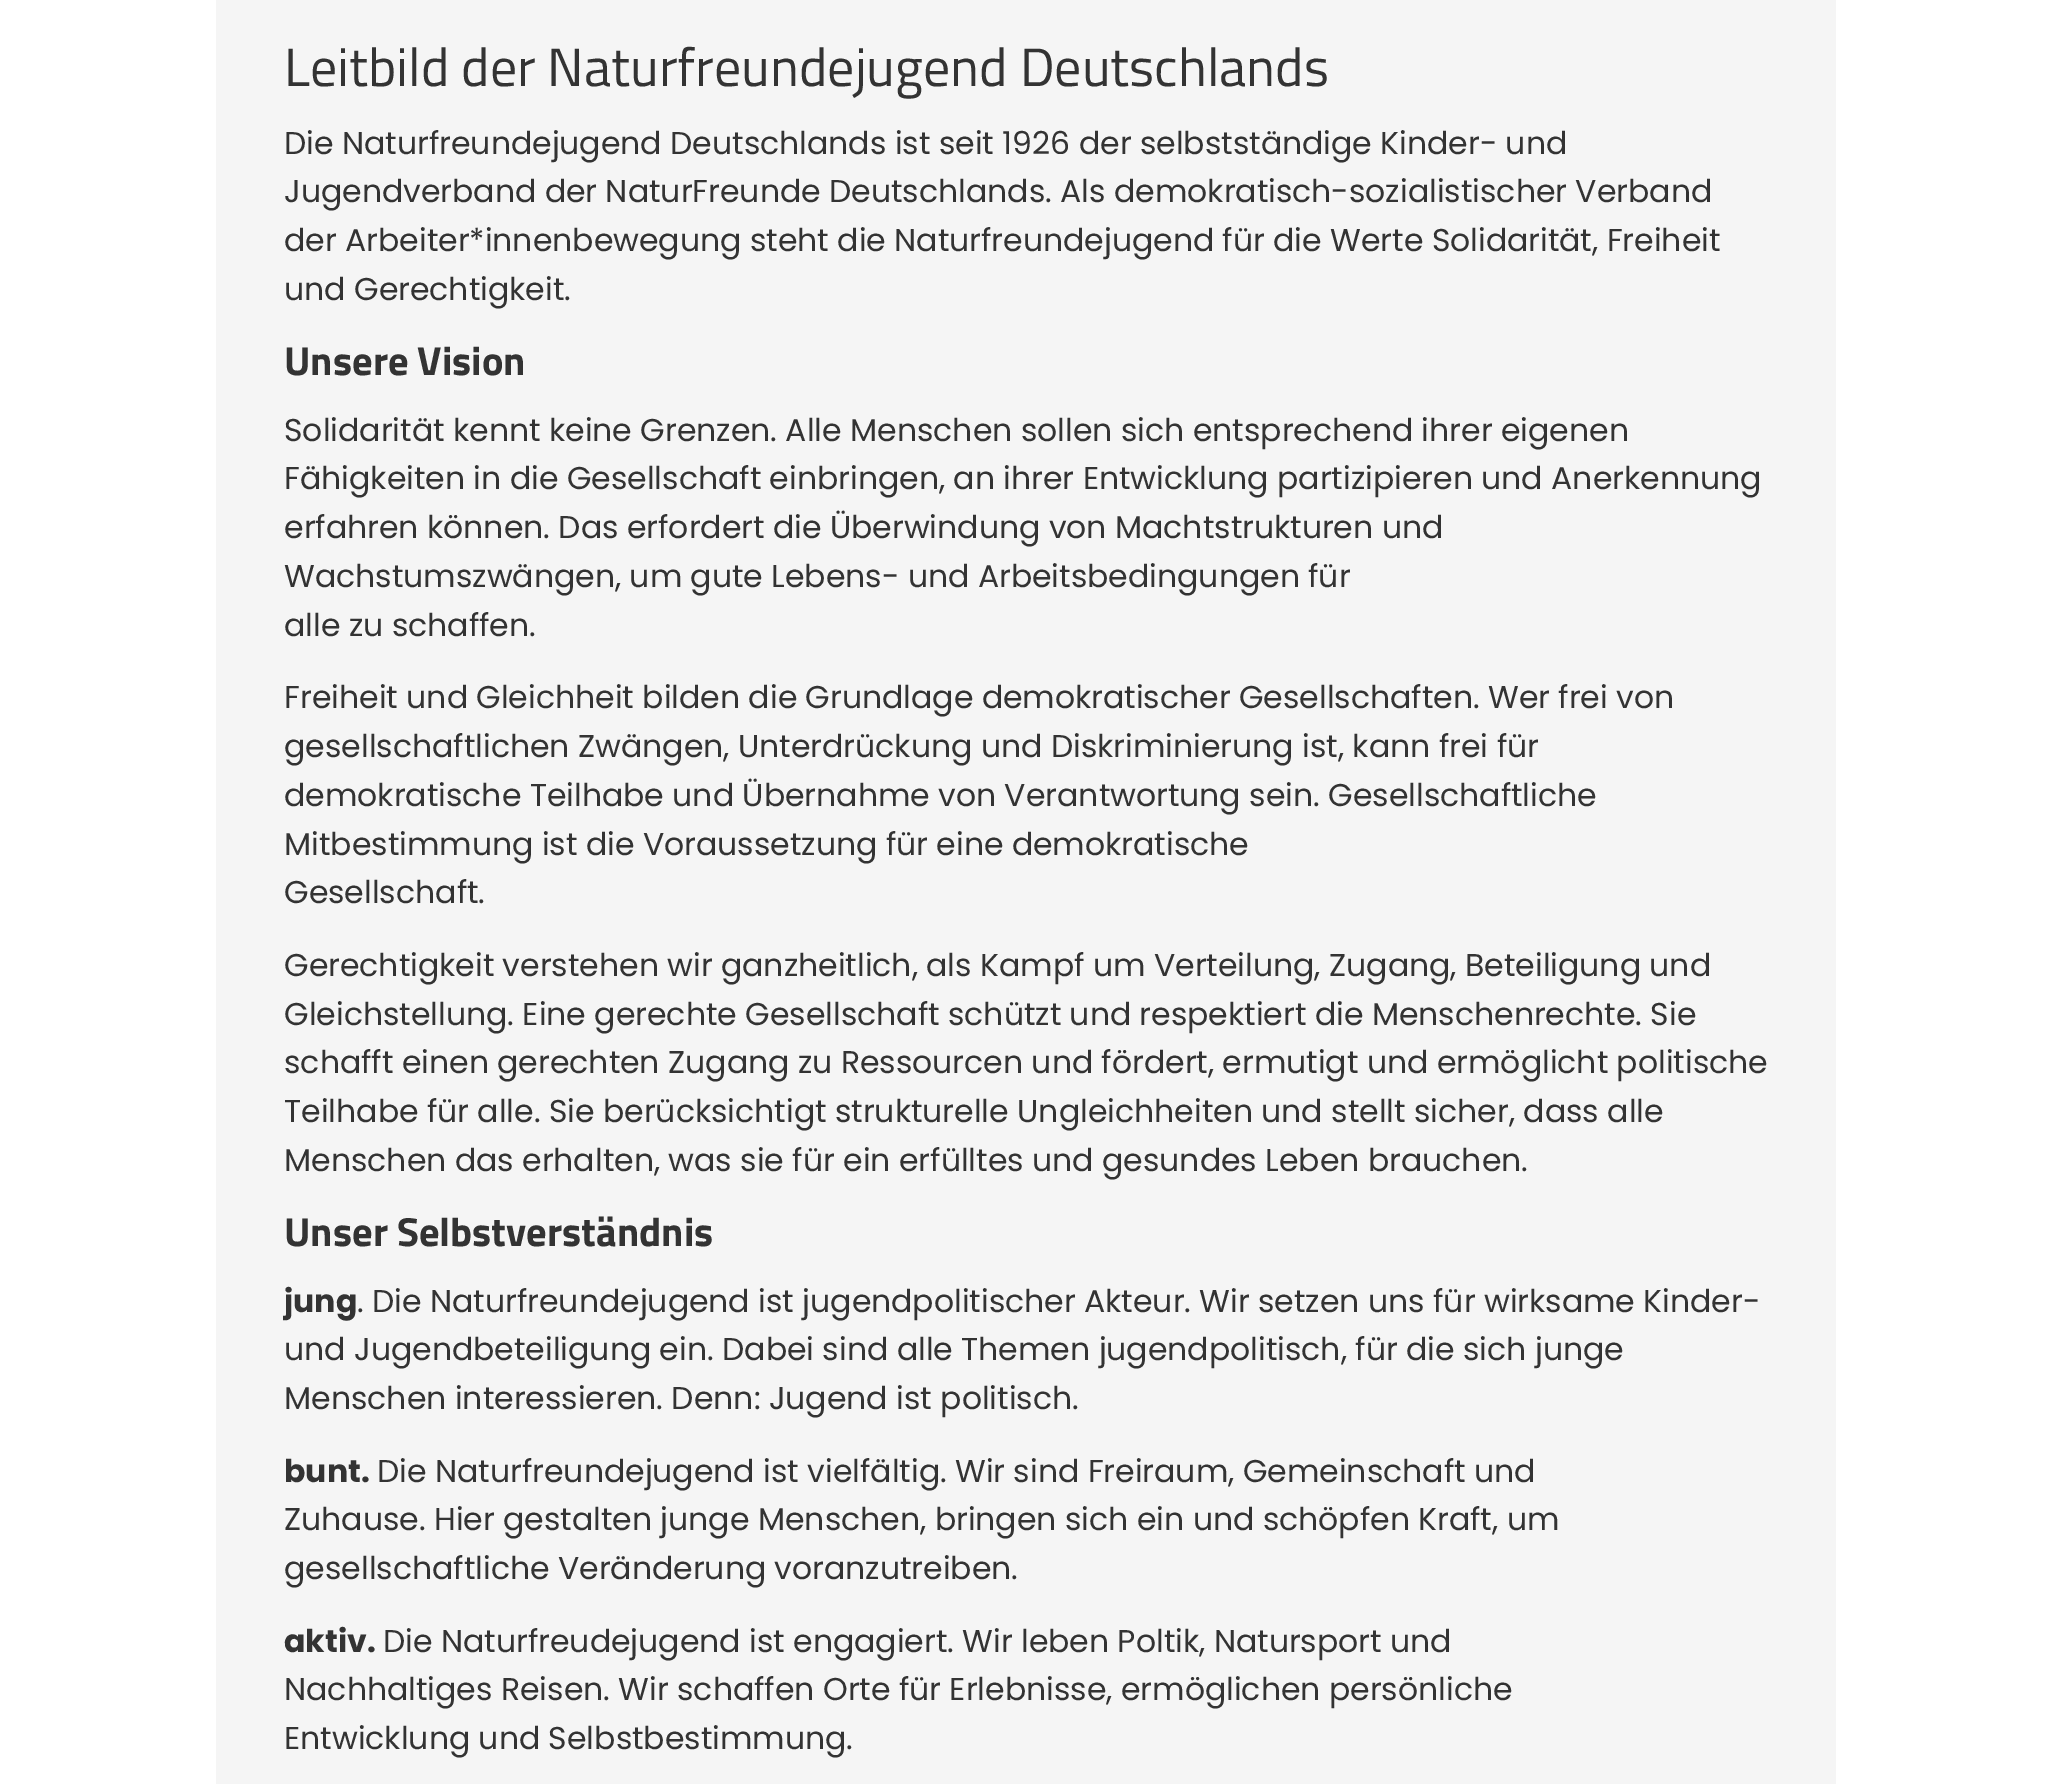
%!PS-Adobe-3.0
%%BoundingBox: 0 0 2051 1784
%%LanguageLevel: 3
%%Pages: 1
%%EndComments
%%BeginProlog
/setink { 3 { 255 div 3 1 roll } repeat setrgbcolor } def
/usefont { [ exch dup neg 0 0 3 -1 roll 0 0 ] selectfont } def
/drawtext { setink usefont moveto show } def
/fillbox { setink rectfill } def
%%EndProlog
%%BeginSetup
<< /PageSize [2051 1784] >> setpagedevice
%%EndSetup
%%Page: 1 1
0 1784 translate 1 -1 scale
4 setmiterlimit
0 0 2051 1784 255 255 255 fillbox
216 0 1620 1784 245 245 245 fillbox
(Leitbild der Naturfreundejugend Deutschlands) 284 86 /TitilliumWeb-Regular 54 51 51 51 drawtext
(Die Naturfreundejugend Deutschlands ist seit 1926 der selbstständige Kinder- und) 284 154 /Poppins-Regular 31.5 51 51 51 drawtext
(Jugendverband der NaturFreunde Deutschlands. Als demokratisch-sozialistischer Verband) 284 202 /Poppins-Regular 31.5 51 51 51 drawtext
(der Arbeiter*innenbewegung steht die Naturfreundejugend für die Werte Solidarität, Freiheit) 284 251 /Poppins-Regular 31.5 51 51 51 drawtext
(und Gerechtigkeit.) 284 300 /Poppins-Regular 31.5 51 51 51 drawtext
(Unsere Vision) 284 375 /TitilliumWeb-Bold 40.5 51 51 51 drawtext
(Solidarität kennt keine Grenzen. Alle Menschen sollen sich entsprechend ihrer eigenen) 284 441 /Poppins-Regular 31.5 51 51 51 drawtext
(Fähigkeiten in die Gesellschaft einbringen, an ihrer Entwicklung partizipieren und Anerkennung) 284 489 /Poppins-Regular 31.5 51 51 51 drawtext
(erfahren können. Das erfordert die Überwindung von Machtstrukturen und) 284 538 /Poppins-Regular 31.5 51 51 51 drawtext
(Wachstumszwängen, um gute Lebens- und Arbeitsbedingungen für) 284 587 /Poppins-Regular 31.5 51 51 51 drawtext
(alle zu schaffen.) 284 636 /Poppins-Regular 31.5 51 51 51 drawtext
(Freiheit und Gleichheit bilden die Grundlage demokratischer Gesellschaften. Wer frei von) 284 708 /Poppins-Regular 31.5 51 51 51 drawtext
(gesellschaftlichen Zwängen, Unterdrückung und Diskriminierung ist, kann frei für) 284 757 /Poppins-Regular 31.5 51 51 51 drawtext
(demokratische Teilhabe und Übernahme von Verantwortung sein. Gesellschaftliche) 284 806 /Poppins-Regular 31.5 51 51 51 drawtext
(Mitbestimmung ist die Voraussetzung für eine demokratische) 284 855 /Poppins-Regular 31.5 51 51 51 drawtext
(Gesellschaft.) 284 903 /Poppins-Regular 31.5 51 51 51 drawtext
(Gerechtigkeit verstehen wir ganzheitlich, als Kampf um Verteilung, Zugang, Beteiligung und) 284 976 /Poppins-Regular 31.5 51 51 51 drawtext
(Gleichstellung. Eine gerechte Gesellschaft schützt und respektiert die Menschenrechte. Sie) 284 1025 /Poppins-Regular 31.5 51 51 51 drawtext
(schafft einen gerechten Zugang zu Ressourcen und fördert, ermutigt und ermöglicht politische) 284 1073 /Poppins-Regular 31.5 51 51 51 drawtext
(Teilhabe für alle. Sie berücksichtigt strukturelle Ungleichheiten und stellt sicher, dass alle) 284 1122 /Poppins-Regular 31.5 51 51 51 drawtext
(Menschen das erhalten, was sie für ein erfülltes und gesundes Leben brauchen.) 284 1171 /Poppins-Regular 31.5 51 51 51 drawtext
(Unser Selbstverständnis) 284 1246 /TitilliumWeb-Bold 40.5 51 51 51 drawtext
(jung) 284 1312 /Poppins-Bold 31.5 51 51 51 drawtext
(. Die Naturfreundejugend ist jugendpolitischer Akteur. Wir setzen uns für wirksame Kinder-) 357 1312 /Poppins-Regular 31.5 51 51 51 drawtext
(und Jugendbeteiligung ein. Dabei sind alle Themen jugendpolitisch, für die sich junge) 284 1360 /Poppins-Regular 31.5 51 51 51 drawtext
(Menschen interessieren. Denn: Jugend ist politisch.) 284 1409 /Poppins-Regular 31.5 51 51 51 drawtext
(bunt.) 284 1482 /Poppins-Bold 31.5 51 51 51 drawtext
(Die Naturfreundejugend ist vielfältig. Wir sind Freiraum, Gemeinschaft und) 377 1482 /Poppins-Regular 31.5 51 51 51 drawtext
(Zuhause. Hier gestalten junge Menschen, bringen sich ein und schöpfen Kraft, um) 284 1530 /Poppins-Regular 31.5 51 51 51 drawtext
(gesellschaftliche Veränderung voranzutreiben.) 284 1579 /Poppins-Regular 31.5 51 51 51 drawtext
(aktiv.) 284 1652 /Poppins-Bold 31.5 51 51 51 drawtext
(Die Naturfreudejugend ist engagiert. Wir leben Poltik, Natursport und) 383 1652 /Poppins-Regular 31.5 51 51 51 drawtext
(Nachhaltiges Reisen. Wir schaffen Orte für Erlebnisse, ermöglichen persönliche) 284 1700 /Poppins-Regular 31.5 51 51 51 drawtext
(Entwicklung und Selbstbestimmung.) 284 1749 /Poppins-Regular 31.5 51 51 51 drawtext
showpage
%%EOF
